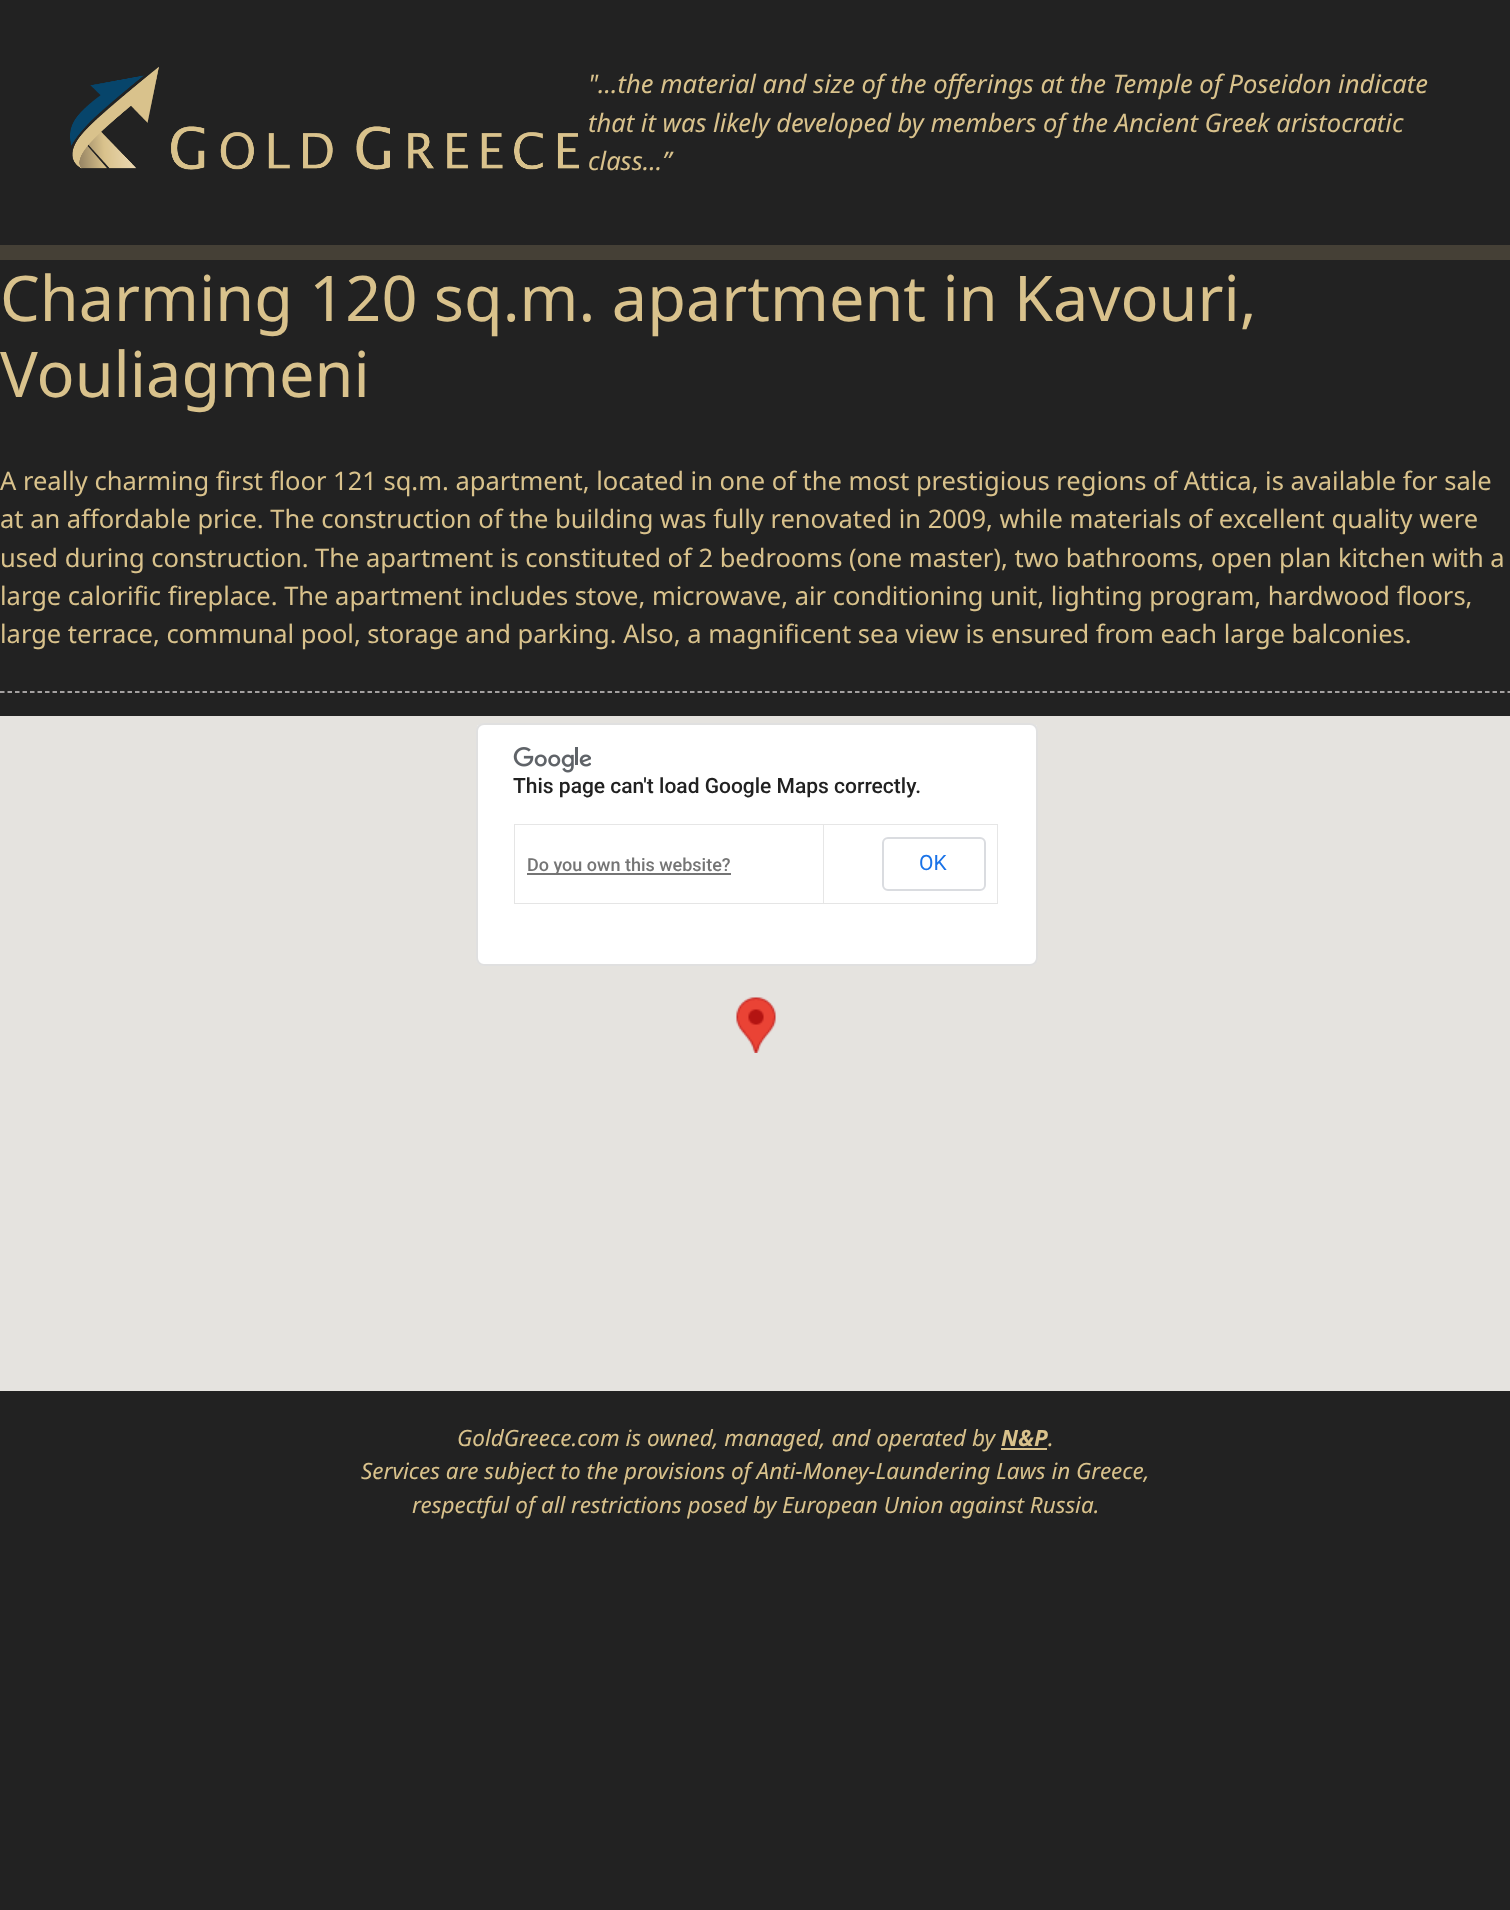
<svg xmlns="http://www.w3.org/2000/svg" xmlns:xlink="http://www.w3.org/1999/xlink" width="1510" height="1910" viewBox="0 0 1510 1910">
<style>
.cls-1{font:italic 25.5px Noto Sans;fill:#d9c28c}
.cls-2{font:63px Noto Sans;fill:#d9c28c}
.cls-3{font:25.5px Noto Sans;fill:#d9c28c}
.cls-4{font:500 21px Roboto;fill:#212121}
.cls-5{font:500 18px Roboto;fill:#757575}
.cls-6{font:21px Roboto;fill:#1a73e8}
.cls-7{font:italic 22.5px Noto Sans;fill:#d9c28c}
.cls-8{font:italic bold 22.5px Noto Sans;fill:#d9c28c}
</style>
<rect width="100%" height="100%" fill="#222222"/>
<rect fill="#454036" x="0" y="245" width="1510" height="15"/>
<image xlink:href="image0.png" x="70" y="66" width="509" height="104"/>
<path fill="none" stroke="#cfcbcb" stroke-width="1.5" stroke-dasharray="4.5 3" d="M0 692H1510.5"/>
<rect fill="#e5e3df" x="0" y="716" width="1510" height="675"/>
<image xlink:href="image1.png" x="736" y="997" width="40" height="56"/>
<rect fill="#ffffff" x="476" y="723" width="562" height="243" rx="8"/>
<rect fill="none" stroke="#000000" stroke-opacity="0.12" stroke-width="2" x="477" y="724" width="560" height="241" rx="7"/>
<image xlink:href="image2.png" x="513" y="747" width="78" height="26"/>
<path fill="#e6e6e6" d="M514 824H998V825H515Z"/>
<path fill="#000000" fill-opacity="0.1" d="M514 904V824L515 825V904Z"/>
<path fill="#e6e6e6" d="M824 825V904L823 903V825Z"/>
<path fill="#000000" fill-opacity="0.1" d="M824 904H515V903H823Z"/>
<rect fill="#757575" x="527" y="873" width="204" height="2"/>
<path fill="#e6e6e6" d="M998 825V904L997 903V825Z"/>
<path fill="#000000" fill-opacity="0.1" d="M998 904H824V903H997Z"/>
<rect fill="none" stroke="#dadce0" stroke-width="2" x="883" y="838" width="102" height="52" rx="5"/>
<rect fill="#d9c28c" x="1001" y="1448" width="46" height="2"/>
<text class="cls-1"><tspan x="588" y="93">"...the material and size of the offerings at the Temple of Poseidon indicate</tspan><tspan x="588" y="132">that it was likely developed by members of the Ancient Greek aristocratic</tspan><tspan x="588" y="170">class...”</tspan></text>
<text class="cls-2"><tspan x="0" y="321">Charming 120 sq.m. apartment in Kavouri,</tspan><tspan x="0" y="397">Vouliagmeni</tspan></text>
<text class="cls-3"><tspan x="0" y="490">A really charming first floor 121 sq.m. apartment, located in one of the most prestigious regions of Attica, is available for sale</tspan><tspan x="0" y="528">at an affordable price. The construction of the building was fully renovated in 2009, while materials of excellent quality were</tspan><tspan x="0" y="567">used during construction. The apartment is constituted of 2 bedrooms (one master), two bathrooms, open plan kitchen with a</tspan><tspan x="0" y="605">large calorific fireplace. The apartment includes stove, microwave, air conditioning unit, lighting program, hardwood floors,</tspan><tspan x="0" y="643">large terrace, communal pool, storage and parking. Also, a magnificent sea view is ensured from each large balconies.</tspan></text>
<text class="cls-4" x="513" y="793">This page can't load Google Maps correctly.</text>
<text class="cls-5" x="527" y="871">Do you own this website?</text>
<text class="cls-6" x="919" y="870">OK</text>
<text class="cls-7" x="457" y="1446">GoldGreece.com is owned, managed, and operated by</text>
<text class="cls-8" x="1001" y="1446">N&amp;P</text>
<text class="cls-7" x="1048" y="1446">.</text>
<text class="cls-7" x="361" y="1479">Services are subject to the provisions of Anti-Money-Laundering Laws in Greece,</text>
<text class="cls-7" x="412" y="1513">respectful of all restrictions posed by European Union against Russia.</text>
</svg>
